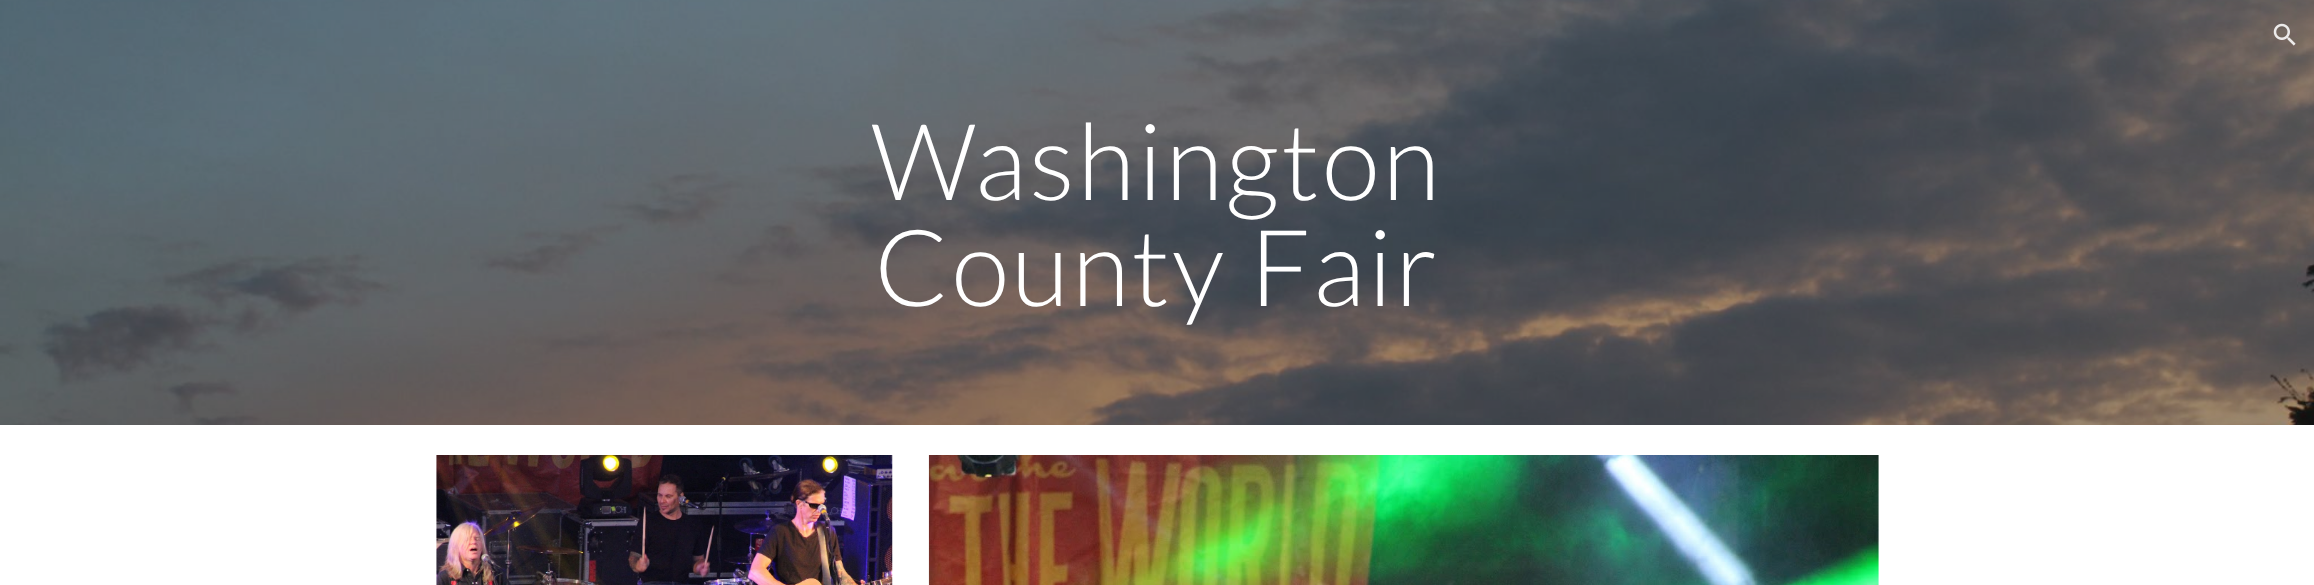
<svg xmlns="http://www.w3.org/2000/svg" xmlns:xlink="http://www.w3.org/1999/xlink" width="2314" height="585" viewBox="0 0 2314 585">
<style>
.cls-1{font:300 106.5px Lato;letter-spacing:2.5px;fill:#ffffff}
</style>
<rect width="100%" height="100%" fill="#ffffff"/>
<image xlink:href="image1.png" x="0" y="0" width="2314" height="425"/>
<image xlink:href="image0.png" x="2273" y="23" width="23" height="23"/>
<image xlink:href="image2.png" x="436" y="455" width="457" height="130"/>
<image xlink:href="image3.png" x="928" y="455" width="951" height="130"/>
<text class="cls-1" x="871" y="200">Washington</text>
<text class="cls-1" x="874" y="306">County Fair</text>
</svg>
